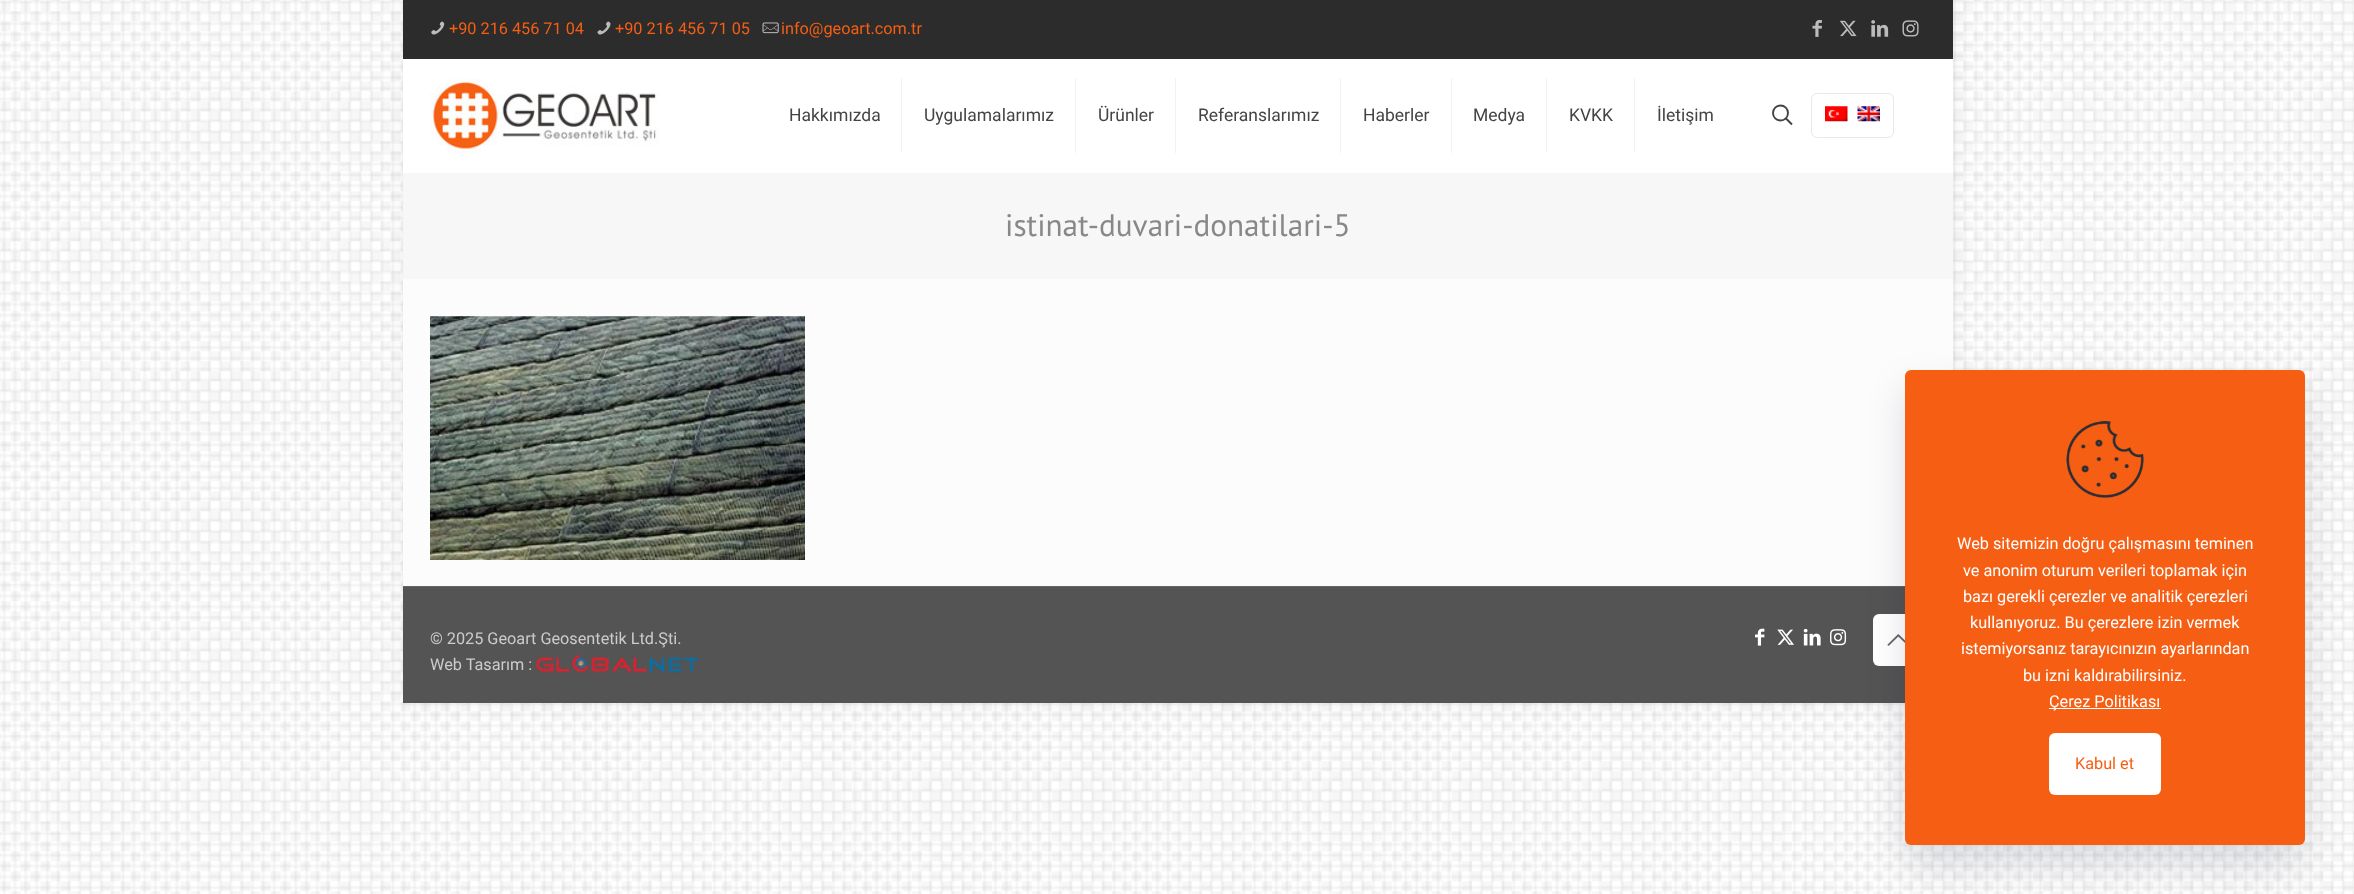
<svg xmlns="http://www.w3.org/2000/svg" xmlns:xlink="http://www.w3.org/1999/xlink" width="2354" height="894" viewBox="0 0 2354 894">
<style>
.cls-1{font:16.25px Roboto;fill:#f65e13}
.cls-2{font:17.5px Roboto;fill:#444444}
.cls-3{font:31.25px PT Sans;fill:#888888}
.cls-4{font:16.25px Roboto;fill:#cccccc}
.cls-5{font:16.25px Roboto;fill:#ffffff}
</style>
<rect width="100%" height="100%" fill="#ffffff"/>
<image xlink:href="image0.png" x="0" y="0" width="2354" height="894"/>
<rect fill="#000000" fill-opacity="0.06" filter="blur(9.5px)" x="403" y="0" width="1550" height="703"/>
<rect fill="#fcfcfc" x="403" y="279" width="1550" height="307"/>
<rect fill="#2c2c2c" x="403" y="0" width="1550" height="59"/>
<image xlink:href="image1.png" x="431" y="21" width="14" height="14"/>
<image xlink:href="image2.png" x="597" y="21" width="14" height="14"/>
<image xlink:href="image3.png" x="762" y="22" width="17" height="12"/>
<image xlink:href="image4.png" x="1812" y="20" width="10" height="17"/>
<image xlink:href="image5.png" x="1839" y="20" width="18" height="17"/>
<image xlink:href="image6.png" x="1871" y="20" width="18" height="17"/>
<image xlink:href="image7.png" x="1902" y="20" width="17" height="17"/>
<rect fill="#ffffff" x="403" y="59" width="1550" height="114"/>
<image xlink:href="image8.png" x="430" y="79" width="229" height="75"/>
<rect fill="#f2f2f2" x="901" y="78" width="1" height="75"/>
<rect fill="#f2f2f2" x="1075" y="78" width="1" height="75"/>
<rect fill="#f2f2f2" x="1175" y="78" width="1" height="75"/>
<rect fill="#f2f2f2" x="1340" y="78" width="1" height="75"/>
<rect fill="#f2f2f2" x="1451" y="78" width="1" height="75"/>
<rect fill="#f2f2f2" x="1546" y="78" width="1" height="75"/>
<rect fill="#f2f2f2" x="1634" y="78" width="1" height="75"/>
<circle fill="none" stroke="#444444" stroke-width="1.9" cx="1780.5" cy="113" r="7.5"/>
<path fill="none" stroke="#444444" stroke-width="1.9" d="M1785.5 118L1792 124.5"/>
<rect fill="none" stroke="#e8e8e8" x="1811.5" y="93.5" width="82" height="44" rx="5.5"/>
<image xlink:href="image9.png" x="1825" y="106" width="23" height="16"/>
<image xlink:href="image10.png" x="1857" y="106" width="23" height="16"/>
<rect fill="#f7f7f7" x="403" y="173" width="1550" height="106"/>
<image xlink:href="image11.png" x="430" y="316" width="375" height="244"/>
<rect fill="#545454" x="403" y="587" width="1502" height="116"/>
<rect fill="#656565" x="403" y="586" width="1502" height="1"/>
<image xlink:href="image12.png" x="536" y="655" width="163" height="18"/>
<image xlink:href="image13.png" x="1755" y="628" width="10" height="18"/>
<image xlink:href="image14.png" x="1777" y="629" width="17" height="16"/>
<image xlink:href="image15.png" x="1803" y="628" width="18" height="18"/>
<image xlink:href="image16.png" x="1830" y="629" width="17" height="17"/>
<rect fill="#ffffff" x="1873" y="614" width="52" height="52" rx="6"/>
<image xlink:href="image17.png" x="1887" y="634" width="18" height="12"/>
<rect fill="#010727" fill-opacity="0.13" filter="blur(19px)" x="1905" y="389" width="400" height="475" rx="6"/>
<rect fill="#f65e13" x="1905" y="370" width="400" height="475" rx="6"/>
<image xlink:href="image18.png" x="2066" y="421" width="78" height="77"/>
<rect fill="#ffffff" x="2049" y="708" width="112" height="1"/>
<rect fill="#ffffff" x="2049" y="733" width="112" height="62" rx="6"/>
<text class="cls-1" x="449" y="34">+90 216 456 71 04</text>
<text class="cls-1" x="615" y="34">+90 216 456 71 05</text>
<text class="cls-1" x="781" y="34">info@geoart.com.tr</text>
<text class="cls-2" x="789" y="121">Hakkımızda</text>
<text class="cls-2" x="924" y="121">Uygulamalarımız</text>
<text class="cls-2" x="1098" y="121">Ürünler</text>
<text class="cls-2" x="1198" y="121">Referanslarımız</text>
<text class="cls-2" x="1363" y="121">Haberler</text>
<text class="cls-2" x="1473" y="121">Medya</text>
<text class="cls-2" x="1569" y="121">KVKK</text>
<text class="cls-2" x="1657" y="121">İletişim</text>
<text class="cls-3" x="1005" y="236">istinat-duvari-donatilari-5</text>
<text class="cls-4"><tspan x="430" y="644">© 2025 Geoart Geosentetik Ltd.Şti.</tspan><tspan x="430" y="670">Web Tasarım :</tspan></text>
<text class="cls-5" x="1957" y="549">Web sitemizin doğru çalışmasını teminen</text>
<text class="cls-5"><tspan x="1963" y="576">ve anonim oturum verileri toplamak için</tspan><tspan x="1963" y="602">bazı gerekli çerezler ve analitik çerezleri</tspan></text>
<text class="cls-5" x="1970" y="628">kullanıyoruz. Bu çerezlere izin vermek</text>
<text class="cls-5" x="1961" y="654">istemiyorsanız tarayıcınızın ayarlarından</text>
<text class="cls-5" x="2023" y="681">bu izni kaldırabilirsiniz.</text>
<text class="cls-5" x="2049" y="707">Çerez Politikası</text>
<text class="cls-1" x="2075" y="769">Kabul et</text>
</svg>
